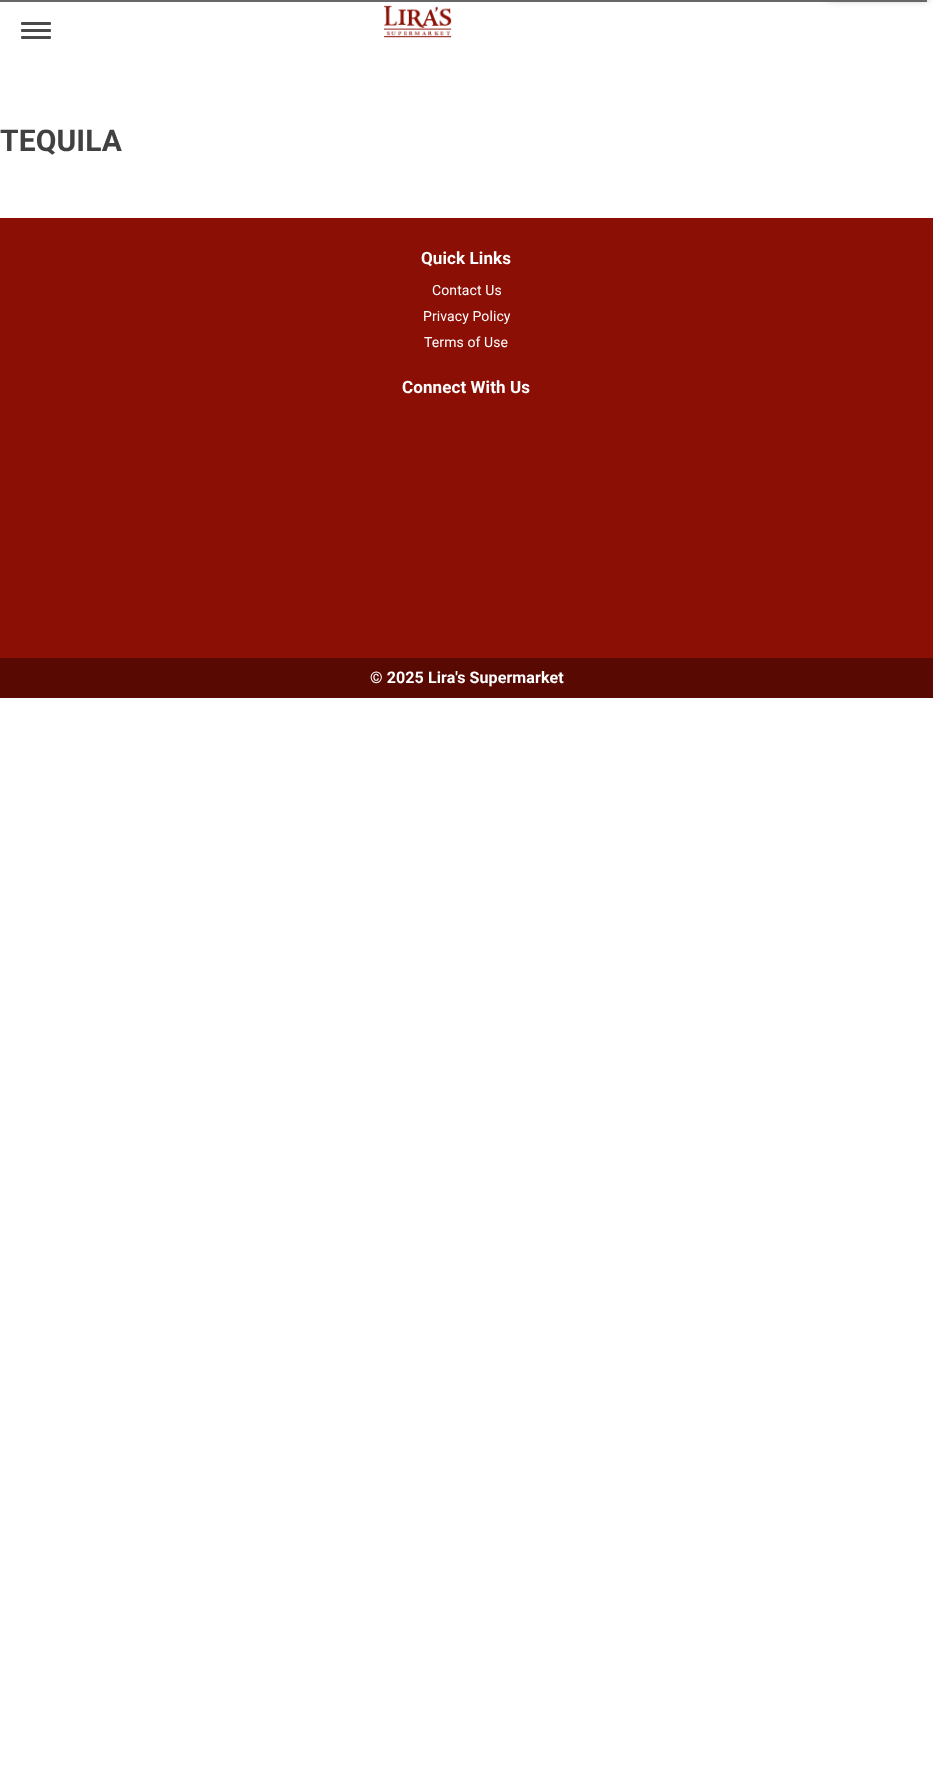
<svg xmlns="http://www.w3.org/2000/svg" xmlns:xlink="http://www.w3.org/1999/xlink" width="933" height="1784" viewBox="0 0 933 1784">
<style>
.cls-1{font:bold 30px Roboto;letter-spacing:0.1px;fill:#414141}
.cls-2{font:bold 17px Roboto;letter-spacing:0.1px;fill:#ffffff}
.cls-3{font:14px Roboto;letter-spacing:0.1px;fill:#ffffff}
.cls-4{font:bold 16px Roboto;letter-spacing:0.1px;fill:#ffffff}
</style>
<rect width="100%" height="100%" fill="#ffffff"/>
<rect fill="#686868" x="0" y="0" width="927" height="2"/>
<rect fill="#686868" filter="blur(2.5px)" x="828" y="-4" width="100" height="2"/>
<rect fill="#686868" filter="blur(5px)" x="828" y="-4" width="100" height="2"/>
<rect fill="#4a4a4a" x="21" y="22" width="30" height="3" rx="1"/>
<rect fill="#4a4a4a" x="21" y="29" width="30" height="3" rx="1"/>
<rect fill="#4a4a4a" x="21" y="36" width="30" height="3" rx="1"/>
<image xlink:href="image0.png" x="384" y="5" width="68" height="33"/>
<rect fill="#8b0f04" x="0" y="218" width="933" height="440"/>
<rect fill="#570902" x="0" y="658" width="933" height="40"/>
<text class="cls-1" x="0" y="151">TEQUILA</text>
<text class="cls-2" x="421" y="264">Quick Links</text>
<text class="cls-3" x="432" y="295">Contact Us</text>
<text class="cls-3" x="423" y="321">Privacy Policy</text>
<text class="cls-3" x="424" y="347">Terms of Use</text>
<text class="cls-2" x="402" y="393">Connect With Us</text>
<text class="cls-4" x="370" y="683">© 2025 Lira's Supermarket</text>
</svg>
